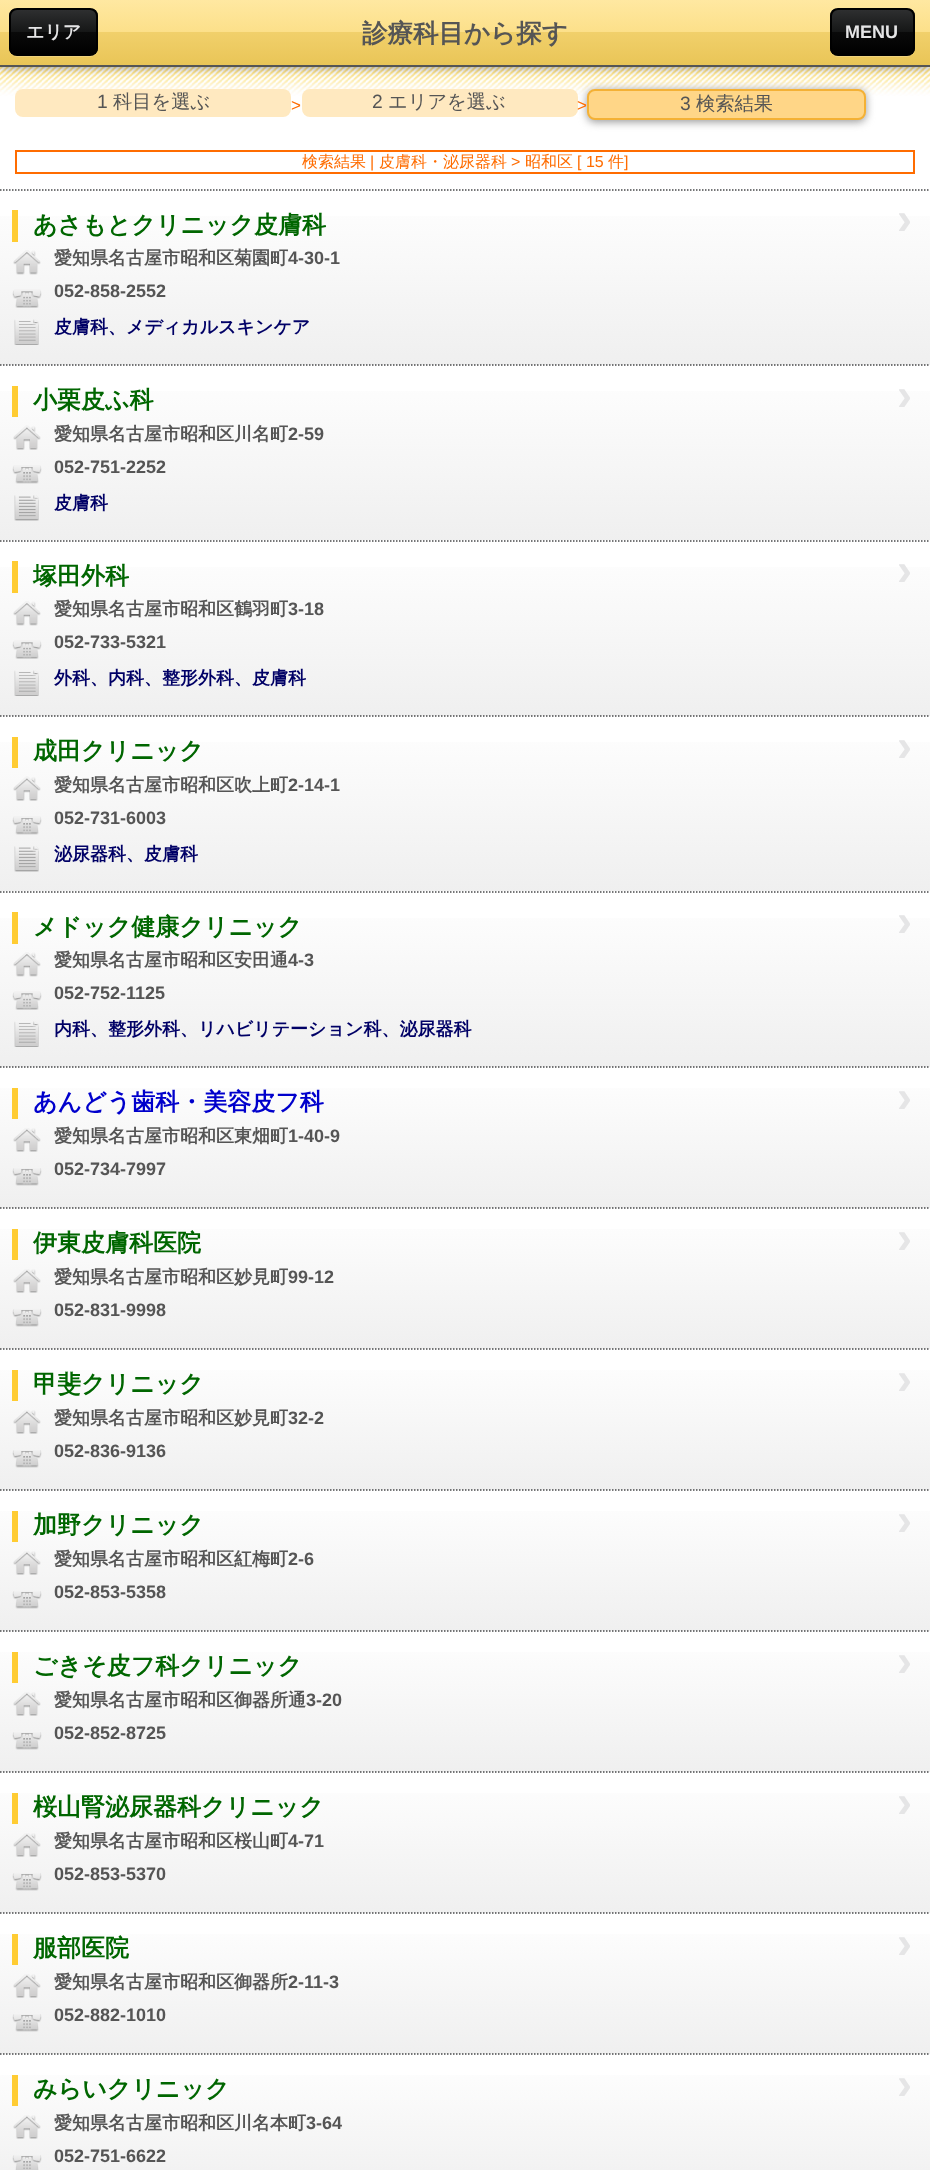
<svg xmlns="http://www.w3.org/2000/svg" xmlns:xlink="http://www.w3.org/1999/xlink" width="930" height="2170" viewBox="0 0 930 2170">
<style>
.cls-1{font:bold 18px WenQuanYi Zen Hei;fill:#e5e5e6}
.cls-2{font:bold 25.5px WenQuanYi Zen Hei;fill:#555555}
.cls-3{font:bold 18px Liberation Sans;fill:#e5e5e6}
.cls-4{font:19.25px Liberation Sans;fill:#555555}
.cls-5{font:500 19.25px WenQuanYi Zen Hei;fill:#555555}
.cls-6{font:17px Liberation Sans;fill:#ff6c00}
.cls-7{font:500 16px WenQuanYi Zen Hei;fill:#ff6c00}
.cls-8{font:16px Liberation Sans;fill:#ff6c00}
.cls-9{font:bold 24px WenQuanYi Zen Hei;fill:#006600}
.cls-10{font:bold 18px WenQuanYi Zen Hei;fill:#555555}
.cls-11{font:bold 18px Liberation Sans;fill:#555555}
.cls-12{font:bold 18px WenQuanYi Zen Hei;fill:#000066}
.cls-13{font:bold 45px Liberation Sans;fill:#e5e5e6}
.cls-14{font:bold 24px WenQuanYi Zen Hei;fill:#0000cc}
</style>
<defs>
<linearGradient id="g1" gradientUnits="userSpaceOnUse" x1="465" y1="0" x2="465" y2="65"><stop offset="0" stop-color="#ffe8a1"/><stop offset="0.49" stop-color="#fce08a"/><stop offset="0.5" stop-color="#f1d06b"/><stop offset="1" stop-color="#e9c557"/></linearGradient>
<clipPath id="clip1"><rect x="9" y="8" width="89" height="48" rx="8"/></clipPath>
<linearGradient id="g2" gradientUnits="userSpaceOnUse" x1="53" y1="9" x2="53" y2="54"><stop offset="0" stop-color="#2f3031"/><stop offset="0.5" stop-color="#161717"/><stop offset="0.51" stop-color="#0a0a0a"/><stop offset="1" stop-color="#000000"/></linearGradient>
<clipPath id="clip2"><rect x="830" y="8" width="85" height="48" rx="8"/></clipPath>
<linearGradient id="g3" gradientUnits="userSpaceOnUse" x1="872" y1="9" x2="872" y2="54"><stop offset="0" stop-color="#2f3031"/><stop offset="0.5" stop-color="#161717"/><stop offset="0.51" stop-color="#0a0a0a"/><stop offset="1" stop-color="#000000"/></linearGradient>
<linearGradient id="g4" gradientUnits="userSpaceOnUse" x1="465" y1="188" x2="465" y2="368"><stop offset="0" stop-color="#ffffff"/><stop offset="1" stop-color="#efefef"/></linearGradient>
<linearGradient id="g5" gradientUnits="userSpaceOnUse" x1="465" y1="363" x2="465" y2="543"><stop offset="0" stop-color="#ffffff"/><stop offset="1" stop-color="#efefef"/></linearGradient>
<linearGradient id="g6" gradientUnits="userSpaceOnUse" x1="465" y1="539" x2="465" y2="719"><stop offset="0" stop-color="#ffffff"/><stop offset="1" stop-color="#efefef"/></linearGradient>
<linearGradient id="g7" gradientUnits="userSpaceOnUse" x1="465" y1="714" x2="465" y2="894"><stop offset="0" stop-color="#ffffff"/><stop offset="1" stop-color="#efefef"/></linearGradient>
<linearGradient id="g8" gradientUnits="userSpaceOnUse" x1="465" y1="890" x2="465" y2="1070"><stop offset="0" stop-color="#ffffff"/><stop offset="1" stop-color="#efefef"/></linearGradient>
<linearGradient id="g9" gradientUnits="userSpaceOnUse" x1="465" y1="1065" x2="465" y2="1211"><stop offset="0" stop-color="#ffffff"/><stop offset="1" stop-color="#efefef"/></linearGradient>
<linearGradient id="g10" gradientUnits="userSpaceOnUse" x1="465" y1="1206" x2="465" y2="1352"><stop offset="0" stop-color="#ffffff"/><stop offset="1" stop-color="#efefef"/></linearGradient>
<linearGradient id="g11" gradientUnits="userSpaceOnUse" x1="465" y1="1347" x2="465" y2="1493"><stop offset="0" stop-color="#ffffff"/><stop offset="1" stop-color="#efefef"/></linearGradient>
<linearGradient id="g12" gradientUnits="userSpaceOnUse" x1="465" y1="1488" x2="465" y2="1634"><stop offset="0" stop-color="#ffffff"/><stop offset="1" stop-color="#efefef"/></linearGradient>
<linearGradient id="g13" gradientUnits="userSpaceOnUse" x1="465" y1="1629" x2="465" y2="1775"><stop offset="0" stop-color="#ffffff"/><stop offset="1" stop-color="#efefef"/></linearGradient>
<linearGradient id="g14" gradientUnits="userSpaceOnUse" x1="465" y1="1770" x2="465" y2="1916"><stop offset="0" stop-color="#ffffff"/><stop offset="1" stop-color="#efefef"/></linearGradient>
<linearGradient id="g15" gradientUnits="userSpaceOnUse" x1="465" y1="1911" x2="465" y2="2057"><stop offset="0" stop-color="#ffffff"/><stop offset="1" stop-color="#efefef"/></linearGradient>
<linearGradient id="g16" gradientUnits="userSpaceOnUse" x1="465" y1="2052" x2="465" y2="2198"><stop offset="0" stop-color="#ffffff"/><stop offset="1" stop-color="#efefef"/></linearGradient>
</defs>
<rect width="100%" height="100%" fill="#ffffff"/>
<image xlink:href="image0.png" x="0" y="67" width="930" height="29"/>
<rect fill="#000000" fill-opacity="0.4" filter="blur(4.5px)" x="0" y="2" width="930" height="66"/>
<rect fill="url(#g1)" x="0" y="0" width="930" height="65"/>
<rect fill="#555555" x="0" y="65" width="930" height="2"/>
<path fill="#ffffff" fill-opacity="0.2" d="M9 48V49C9 53 13 57 17 57H90C94 57 98 53 98 49V17L97 14L98 48C98 52 94 56 90 56H16C12 56 9 52 9 48Z"/>
<g clip-path="url(#clip1)">
<rect fill="url(#g2)" x="9" y="9" width="89" height="45"/>
</g>
<rect fill="none" stroke="#000000" stroke-width="2" x="10" y="9" width="87" height="46" rx="7"/>
<path fill="#efd37d" d="M830 52C832 55 835 57 838 57H907C911 57 915 53 915 49V48C915 52 912 56 908 56H837C834 56 832 54 830 52Z"/>
<g clip-path="url(#clip2)">
<rect fill="url(#g3)" x="830" y="9" width="85" height="45"/>
</g>
<rect fill="none" stroke="#000000" stroke-width="2" x="831" y="9" width="83" height="46" rx="7"/>
<rect fill="#ffe9c0" x="15" y="89" width="276" height="28" rx="8"/>
<rect fill="#ffe9c0" x="302" y="89" width="276" height="28" rx="8"/>
<rect fill="#999999" filter="blur(4px)" x="587" y="90" width="279" height="32" rx="8"/>
<rect fill="#ffd687" stroke="#f4b135" stroke-width="2" x="588" y="90" width="277" height="29" rx="7"/>
<rect fill="none" stroke="#ff6c00" stroke-width="2" x="16" y="151" width="898" height="22"/>
<path fill="none" stroke="#48494b" stroke-width="1.5" stroke-dasharray="1.5 1.5" d="M0 190H930"/>
<rect fill="url(#g4)" x="0" y="216" width="930" height="149"/>
<rect fill="#ffcc33" x="12" y="210" width="6" height="32"/>
<image xlink:href="image1.png" x="13" y="250" width="28" height="25"/>
<image xlink:href="image2.png" x="12" y="289" width="30" height="19"/>
<image xlink:href="image3.png" x="14" y="319" width="25" height="26"/>
<path fill="none" stroke="#48494b" stroke-width="1.5" stroke-dasharray="1.5 1.5" d="M0 365H930"/>
<rect fill="url(#g5)" x="0" y="391" width="930" height="149"/>
<rect fill="#ffcc33" x="12" y="386" width="6" height="31"/>
<image xlink:href="image4.png" x="13" y="425" width="28" height="25"/>
<image xlink:href="image5.png" x="12" y="465" width="30" height="19"/>
<image xlink:href="image6.png" x="14" y="495" width="25" height="26"/>
<path fill="none" stroke="#48494b" stroke-width="1.5" stroke-dasharray="1.5 1.5" d="M0 541H930"/>
<rect fill="url(#g6)" x="0" y="567" width="930" height="149"/>
<rect fill="#ffcc33" x="12" y="561" width="6" height="32"/>
<image xlink:href="image1.png" x="13" y="601" width="28" height="25"/>
<image xlink:href="image2.png" x="12" y="640" width="30" height="19"/>
<image xlink:href="image3.png" x="14" y="670" width="25" height="26"/>
<path fill="none" stroke="#48494b" stroke-width="1.5" stroke-dasharray="1.5 1.5" d="M0 716H930"/>
<rect fill="url(#g7)" x="0" y="742" width="930" height="149"/>
<rect fill="#ffcc33" x="12" y="737" width="6" height="31"/>
<image xlink:href="image4.png" x="13" y="776" width="28" height="25"/>
<image xlink:href="image5.png" x="12" y="816" width="30" height="19"/>
<image xlink:href="image6.png" x="14" y="846" width="25" height="26"/>
<path fill="none" stroke="#48494b" stroke-width="1.5" stroke-dasharray="1.5 1.5" d="M0 892H930"/>
<rect fill="url(#g8)" x="0" y="918" width="930" height="149"/>
<rect fill="#ffcc33" x="12" y="912" width="6" height="32"/>
<image xlink:href="image1.png" x="13" y="952" width="28" height="25"/>
<image xlink:href="image2.png" x="12" y="991" width="30" height="19"/>
<image xlink:href="image3.png" x="14" y="1021" width="25" height="26"/>
<path fill="none" stroke="#48494b" stroke-width="1.5" stroke-dasharray="1.5 1.5" d="M0 1067H930"/>
<rect fill="url(#g9)" x="0" y="1088" width="930" height="120"/>
<rect fill="#ffcc33" x="12" y="1088" width="6" height="31"/>
<image xlink:href="image7.png" x="13" y="1128" width="28" height="24"/>
<image xlink:href="image8.png" x="12" y="1168" width="30" height="18"/>
<path fill="none" stroke="#48494b" stroke-width="1.5" stroke-dasharray="1.5 1.5" d="M0 1208H930"/>
<rect fill="url(#g10)" x="0" y="1229" width="930" height="120"/>
<rect fill="#ffcc33" x="12" y="1229" width="6" height="31"/>
<image xlink:href="image7.png" x="13" y="1269" width="28" height="24"/>
<image xlink:href="image8.png" x="12" y="1309" width="30" height="18"/>
<path fill="none" stroke="#48494b" stroke-width="1.5" stroke-dasharray="1.5 1.5" d="M0 1349H930"/>
<rect fill="url(#g11)" x="0" y="1370" width="930" height="120"/>
<rect fill="#ffcc33" x="12" y="1370" width="6" height="31"/>
<image xlink:href="image7.png" x="13" y="1410" width="28" height="24"/>
<image xlink:href="image8.png" x="12" y="1450" width="30" height="18"/>
<path fill="none" stroke="#48494b" stroke-width="1.5" stroke-dasharray="1.5 1.5" d="M0 1490H930"/>
<rect fill="url(#g12)" x="0" y="1511" width="930" height="120"/>
<rect fill="#ffcc33" x="12" y="1511" width="6" height="31"/>
<image xlink:href="image7.png" x="13" y="1551" width="28" height="24"/>
<image xlink:href="image8.png" x="12" y="1591" width="30" height="18"/>
<path fill="none" stroke="#48494b" stroke-width="1.5" stroke-dasharray="1.5 1.5" d="M0 1631H930"/>
<rect fill="url(#g13)" x="0" y="1652" width="930" height="120"/>
<rect fill="#ffcc33" x="12" y="1652" width="6" height="31"/>
<image xlink:href="image7.png" x="13" y="1692" width="28" height="24"/>
<image xlink:href="image8.png" x="12" y="1732" width="30" height="18"/>
<path fill="none" stroke="#48494b" stroke-width="1.5" stroke-dasharray="1.5 1.5" d="M0 1772H930"/>
<rect fill="url(#g14)" x="0" y="1793" width="930" height="120"/>
<rect fill="#ffcc33" x="12" y="1793" width="6" height="31"/>
<image xlink:href="image7.png" x="13" y="1833" width="28" height="24"/>
<image xlink:href="image8.png" x="12" y="1873" width="30" height="18"/>
<path fill="none" stroke="#48494b" stroke-width="1.5" stroke-dasharray="1.5 1.5" d="M0 1913H930"/>
<rect fill="url(#g15)" x="0" y="1934" width="930" height="120"/>
<rect fill="#ffcc33" x="12" y="1934" width="6" height="31"/>
<image xlink:href="image7.png" x="13" y="1974" width="28" height="24"/>
<image xlink:href="image8.png" x="12" y="2014" width="30" height="18"/>
<path fill="none" stroke="#48494b" stroke-width="1.5" stroke-dasharray="1.5 1.5" d="M0 2054H930"/>
<rect fill="url(#g16)" x="0" y="2075" width="930" height="95"/>
<rect fill="#ffcc33" x="12" y="2075" width="6" height="31"/>
<image xlink:href="image7.png" x="13" y="2115" width="28" height="24"/>
<image xlink:href="image9.png" x="12" y="2155" width="30" height="15"/>
<text class="cls-1" x="26" y="38">エリア</text>
<text class="cls-2" x="362" y="42">診療科目から探す</text>
<text class="cls-3" x="845" y="38">MENU</text>
<text class="cls-4" x="97" y="108">1</text>
<text class="cls-5" x="113" y="108">科目を選ぶ</text>
<text class="cls-6" x="291" y="111">&gt;</text>
<text class="cls-4" x="372" y="108">2</text>
<text class="cls-5" x="388" y="108">エリアを選ぶ</text>
<text class="cls-6" x="577" y="111">&gt;</text>
<text class="cls-4" x="680" y="110">3</text>
<text class="cls-5" x="696" y="110">検索結果</text>
<text class="cls-7" x="302" y="167">検索結果</text>
<text class="cls-8" x="370" y="167">|</text>
<text class="cls-7" x="379" y="167">皮膚科・泌尿器科</text>
<text class="cls-8" x="511" y="167">&gt;</text>
<text class="cls-7" x="525" y="167">昭和区</text>
<text class="cls-8" x="577" y="167">[ 15</text>
<text class="cls-7" x="608" y="167">件</text>
<text class="cls-8" x="624" y="167">]</text>
<text class="cls-9" x="33" y="233">あさもとクリニック皮膚科</text>
<text class="cls-10" x="54" y="264">愛知県名古屋市昭和区菊園町</text>
<text class="cls-11" x="288" y="264">4-30-1</text>
<text class="cls-11" x="54" y="297">052-858-2552</text>
<text class="cls-12" x="54" y="333">皮膚科、メディカルスキンケア</text>
<text class="cls-13" x="897" y="234">›</text>
<text class="cls-9" x="33" y="408">小栗皮ふ科</text>
<text class="cls-10" x="54" y="440">愛知県名古屋市昭和区川名町</text>
<text class="cls-11" x="288" y="440">2-59</text>
<text class="cls-11" x="54" y="473">052-751-2252</text>
<text class="cls-12" x="54" y="509">皮膚科</text>
<text class="cls-13" x="897" y="410">›</text>
<text class="cls-9" x="33" y="584">塚田外科</text>
<text class="cls-10" x="54" y="615">愛知県名古屋市昭和区鶴羽町</text>
<text class="cls-11" x="288" y="615">3-18</text>
<text class="cls-11" x="54" y="648">052-733-5321</text>
<text class="cls-12" x="54" y="684">外科、内科、整形外科、皮膚科</text>
<text class="cls-13" x="897" y="585">›</text>
<text class="cls-9" x="33" y="759">成田クリニック</text>
<text class="cls-10" x="54" y="791">愛知県名古屋市昭和区吹上町</text>
<text class="cls-11" x="288" y="791">2-14-1</text>
<text class="cls-11" x="54" y="824">052-731-6003</text>
<text class="cls-12" x="54" y="860">泌尿器科、皮膚科</text>
<text class="cls-13" x="897" y="761">›</text>
<text class="cls-9" x="33" y="935">メドック健康クリニック</text>
<text class="cls-10" x="54" y="966">愛知県名古屋市昭和区安田通</text>
<text class="cls-11" x="288" y="966">4-3</text>
<text class="cls-11" x="54" y="999">052-752-1125</text>
<text class="cls-12" x="54" y="1035">内科、整形外科、リハビリテーション科、泌尿器科</text>
<text class="cls-13" x="897" y="936">›</text>
<text class="cls-14" x="33" y="1110">あんどう歯科・美容皮フ科</text>
<text class="cls-10" x="54" y="1142">愛知県名古屋市昭和区東畑町</text>
<text class="cls-11" x="288" y="1142">1-40-9</text>
<text class="cls-11" x="54" y="1175">052-734-7997</text>
<text class="cls-13" x="897" y="1112">›</text>
<text class="cls-9" x="33" y="1251">伊東皮膚科医院</text>
<text class="cls-10" x="54" y="1283">愛知県名古屋市昭和区妙見町</text>
<text class="cls-11" x="288" y="1283">99-12</text>
<text class="cls-11" x="54" y="1316">052-831-9998</text>
<text class="cls-13" x="897" y="1253">›</text>
<text class="cls-9" x="33" y="1392">甲斐クリニック</text>
<text class="cls-10" x="54" y="1424">愛知県名古屋市昭和区妙見町</text>
<text class="cls-11" x="288" y="1424">32-2</text>
<text class="cls-11" x="54" y="1457">052-836-9136</text>
<text class="cls-13" x="897" y="1394">›</text>
<text class="cls-9" x="33" y="1533">加野クリニック</text>
<text class="cls-10" x="54" y="1565">愛知県名古屋市昭和区紅梅町</text>
<text class="cls-11" x="288" y="1565">2-6</text>
<text class="cls-11" x="54" y="1598">052-853-5358</text>
<text class="cls-13" x="897" y="1535">›</text>
<text class="cls-9" x="33" y="1674">ごきそ皮フ科クリニック</text>
<text class="cls-10" x="54" y="1706">愛知県名古屋市昭和区御器所通</text>
<text class="cls-11" x="306" y="1706">3-20</text>
<text class="cls-11" x="54" y="1739">052-852-8725</text>
<text class="cls-13" x="897" y="1676">›</text>
<text class="cls-9" x="33" y="1815">桜山腎泌尿器科クリニック</text>
<text class="cls-10" x="54" y="1847">愛知県名古屋市昭和区桜山町</text>
<text class="cls-11" x="288" y="1847">4-71</text>
<text class="cls-11" x="54" y="1880">052-853-5370</text>
<text class="cls-13" x="897" y="1817">›</text>
<text class="cls-9" x="33" y="1956">服部医院</text>
<text class="cls-10" x="54" y="1988">愛知県名古屋市昭和区御器所</text>
<text class="cls-11" x="288" y="1988">2-11-3</text>
<text class="cls-11" x="54" y="2021">052-882-1010</text>
<text class="cls-13" x="897" y="1958">›</text>
<text class="cls-9" x="33" y="2097">みらいクリニック</text>
<text class="cls-10" x="54" y="2129">愛知県名古屋市昭和区川名本町</text>
<text class="cls-11" x="306" y="2129">3-64</text>
<text class="cls-11" x="54" y="2162">052-751-6622</text>
<text class="cls-13" x="897" y="2099">›</text>
</svg>
